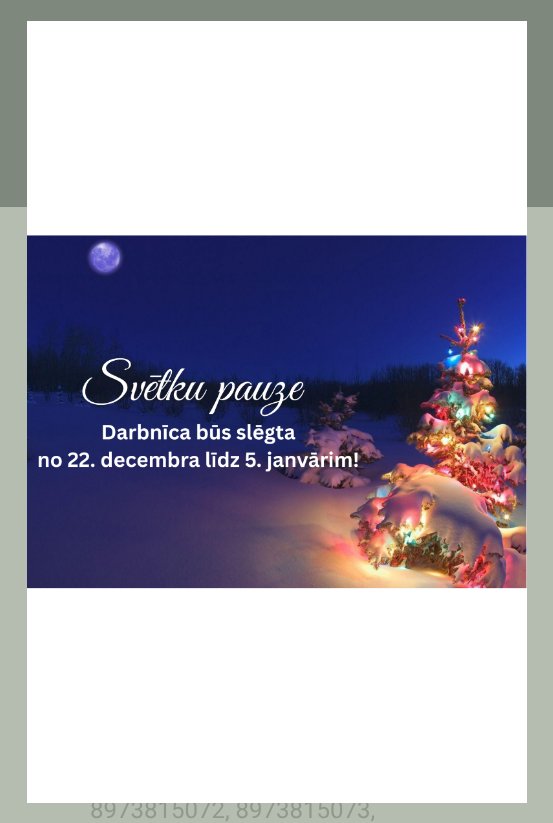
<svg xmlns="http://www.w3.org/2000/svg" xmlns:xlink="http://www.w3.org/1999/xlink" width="553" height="823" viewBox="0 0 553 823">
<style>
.cls-1{font:24px Roboto;fill:#91998d}
</style>
<rect width="100%" height="100%" fill="#7f887d"/>
<rect fill="#b5bdb1" x="0" y="207" width="553" height="616"/>
<text class="cls-1" x="90" y="818">8973815072, 8973815073,</text>
<rect fill="#ffffff" x="27" y="21" width="500" height="782"/>
<image xlink:href="image0.png" x="27" y="235" width="500" height="354"/>
</svg>
